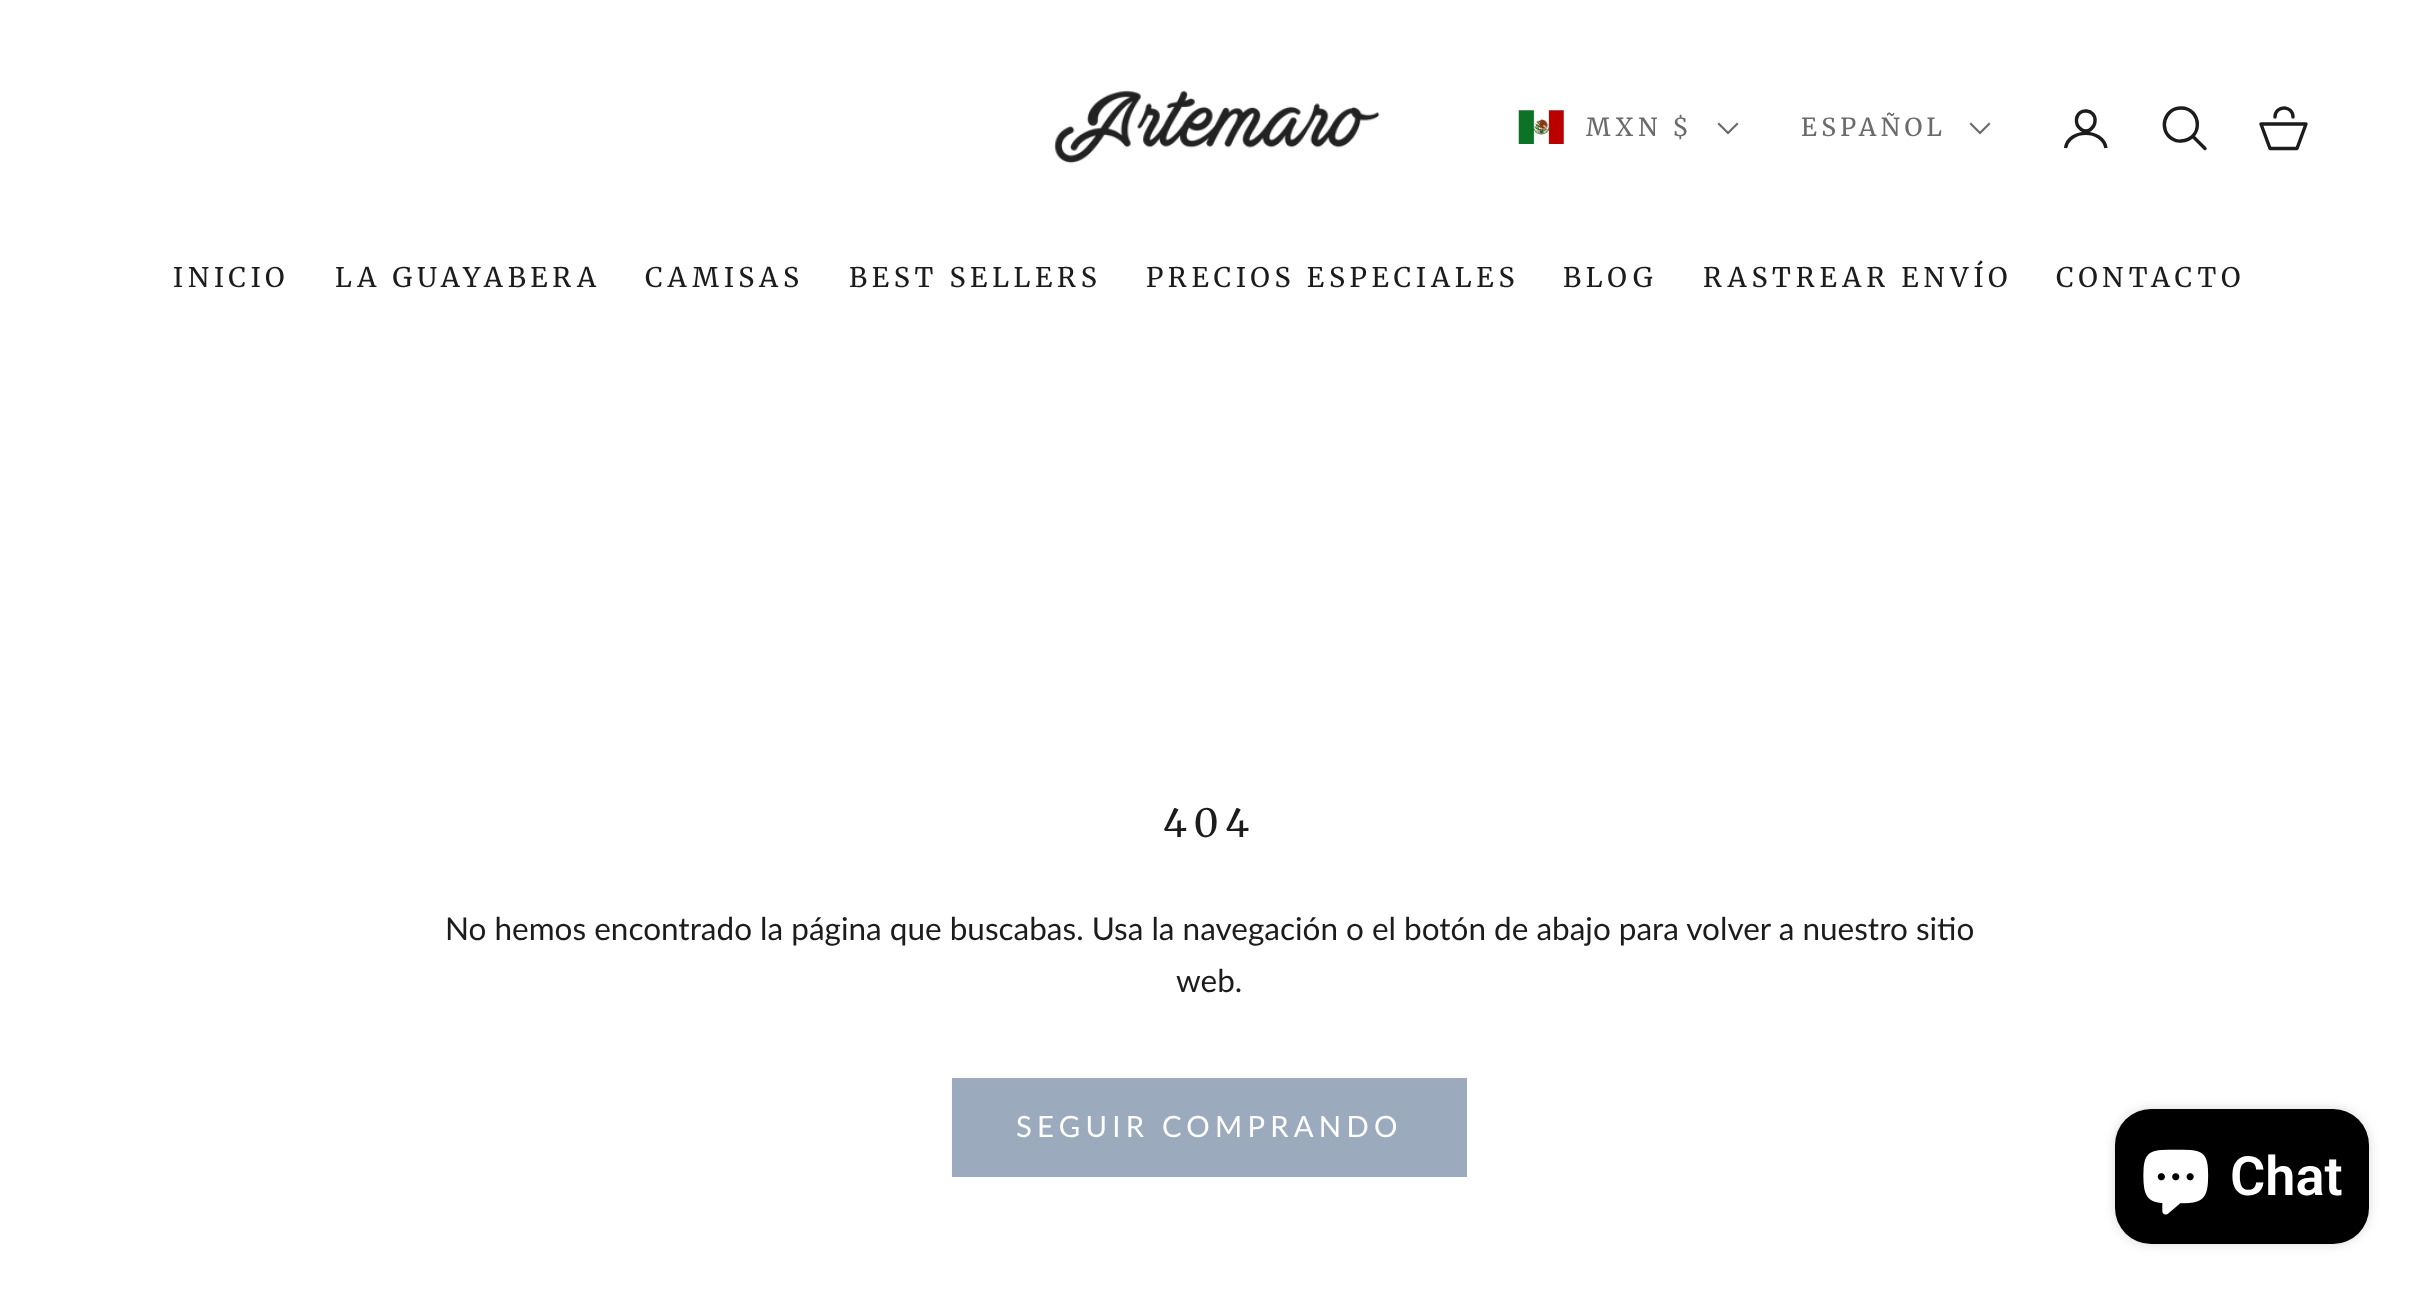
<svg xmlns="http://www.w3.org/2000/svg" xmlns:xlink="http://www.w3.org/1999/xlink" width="2418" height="1291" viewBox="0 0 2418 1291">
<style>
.cls-1{font:24.75px Merriweather;letter-spacing:4.5px;fill:#6b6b6b}
.cls-2{font:27px Merriweather;letter-spacing:4.9px;fill:#1c1c1c}
.cls-3{font:39px Merriweather;letter-spacing:7px;fill:#1c1c1c}
.cls-4{font:31.5px Lato;fill:#1c1c1c}
.cls-5{font:29.25px Lato;letter-spacing:5.25px;fill:#ffffff}
.cls-6{font:600 54px Roboto;fill:#ffffff}
</style>
<rect width="100%" height="100%" fill="#ffffff"/>
<image xlink:href="image0.png" x="1054" y="90" width="326" height="74"/>
<image xlink:href="image1.png" x="1518" y="110" width="46" height="34"/>
<path fill="none" stroke="#6b6b6b" stroke-width="2.2" stroke-linecap="square" d="M1719 124L1728 133L1737 124"/>
<path fill="none" stroke="#6b6b6b" stroke-width="2.2" stroke-linecap="square" d="M1971 124L1980 133L1989 124"/>
<path fill="none" stroke="#1c1c1c" stroke-width="3.4" stroke-linecap="round" stroke-linejoin="round" d="M2095 121C2095 123.5 2094 126 2092 128C2085 135.5 2075.5 127.5 2076.5 119C2078 107 2096 109 2095 121Z"/>
<path fill="none" stroke="#1c1c1c" stroke-width="3.4" d="M2065.5 148C2069 128.5 2102.5 128.5 2106 148"/>
<path fill="none" stroke="#1c1c1c" stroke-width="3.4" d="M2181 108C2164 108 2158 130.5 2172.5 139C2175 140.5 2178 141.5 2181 141C2203.5 140 2202 108 2181 108Z"/>
<path fill="none" stroke="#1c1c1c" stroke-width="3.4" stroke-linecap="round" d="M2193.5 137L2205 148.5"/>
<path fill="none" stroke="#1c1c1c" stroke-width="3.4" stroke-linecap="round" stroke-linejoin="round" d="M2261 124H2306L2297 148.5H2270ZM2293 117C2293 105 2275 105 2275 117"/>
<rect fill="#9baabc" stroke="#9baabc" stroke-width="2" x="953" y="1079" width="513" height="97"/>
<rect fill="#000000" fill-opacity="0.15" filter="blur(5.5px)" x="2115" y="1109" width="254" height="135" rx="36"/>
<rect fill="#000000" x="2115" y="1109" width="254" height="135" rx="36"/>
<image xlink:href="image2.png" x="2143" y="1149" width="66" height="66"/>
<text class="cls-1" x="1586" y="136">MXN $</text>
<text class="cls-1" x="1801" y="136">ESPAÑOL</text>
<text class="cls-2" x="173" y="287">INICIO</text>
<text class="cls-2" x="335" y="287">LA GUAYABERA</text>
<text class="cls-2" x="645" y="287">CAMISAS</text>
<text class="cls-2" x="849" y="287">BEST SELLERS</text>
<text class="cls-2" x="1146" y="287">PRECIOS ESPECIALES</text>
<text class="cls-2" x="1563" y="287">BLOG</text>
<text class="cls-2" x="1703" y="287">RASTREAR ENVÍO</text>
<text class="cls-2" x="2056" y="287">CONTACTO</text>
<text class="cls-3" x="1163" y="837">404</text>
<text class="cls-4" x="445" y="940">No hemos encontrado la página que buscabas. Usa la navegación o el botón de abajo para volver a nuestro sitio</text>
<text class="cls-4" x="1176" y="992">web.</text>
<text class="cls-5" x="1016" y="1137">SEGUIR COMPRANDO</text>
<text class="cls-6" x="2230" y="1195">Chat</text>
</svg>
